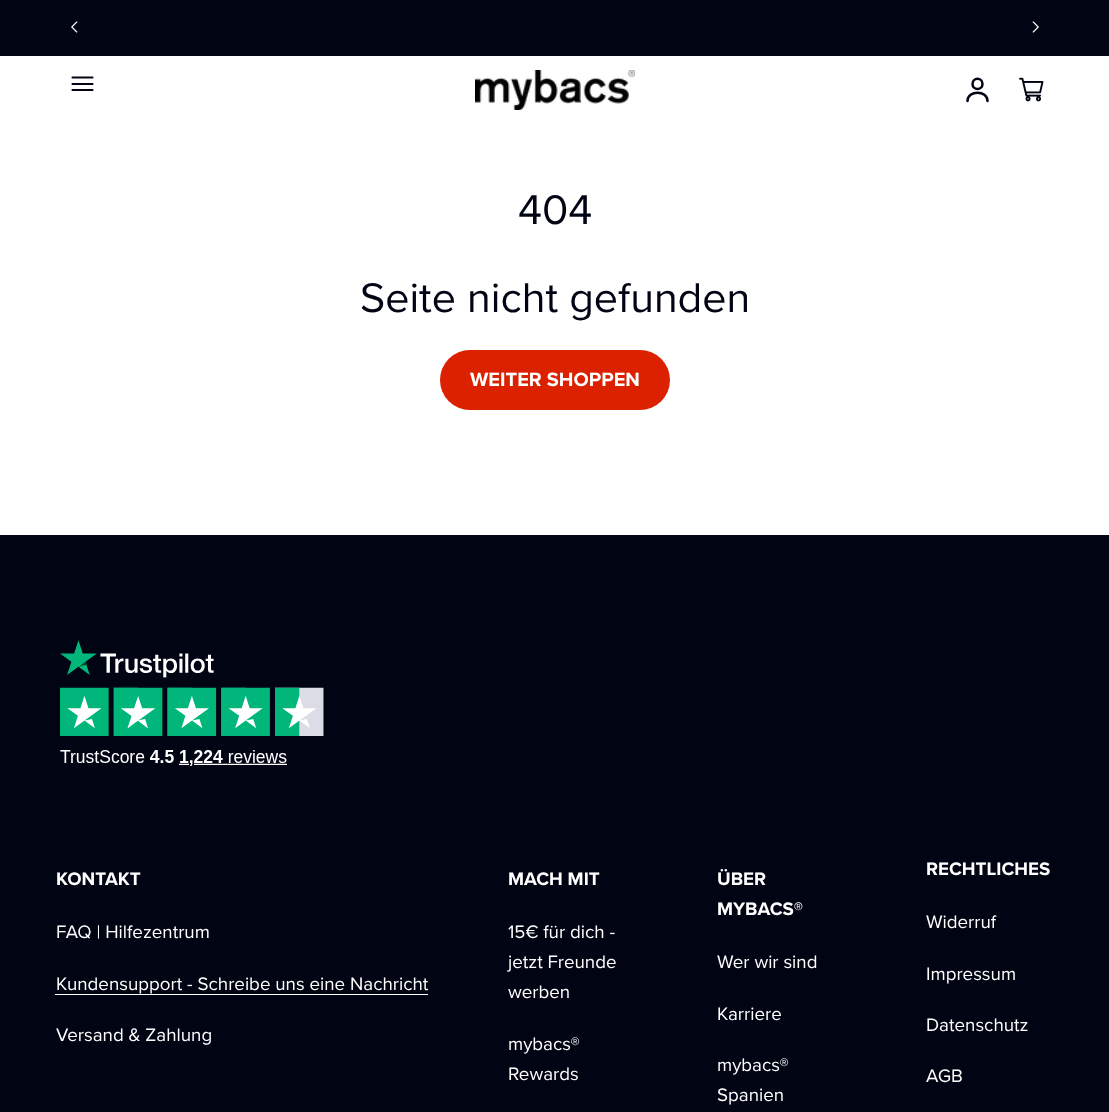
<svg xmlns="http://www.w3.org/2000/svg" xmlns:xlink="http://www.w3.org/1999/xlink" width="1109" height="1112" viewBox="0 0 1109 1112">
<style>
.cls-1{font:43px Proxima Nova;fill:#000413}
.cls-2{font:bold 20px Proxima Nova;fill:#ffffff}
.cls-3{font:bold 18.75px Proxima Nova;fill:#ffffff}
.cls-4{font:18.75px Proxima Nova;fill:#ffffff}
</style>
<rect width="100%" height="100%" fill="#ffffff"/>
<rect fill="#000413" x="0" y="0" width="1109" height="56"/>
<image xlink:href="image0.png" x="71" y="21" width="7" height="12"/>
<image xlink:href="image1.png" x="1032" y="21" width="7" height="12"/>
<path fill="none" stroke="#000413" stroke-width="2.1" stroke-linecap="round" d="M72.5 77.5H92.5M72.5 84H92.5M72.5 90H92.5"/>
<image xlink:href="image2.png" x="475" y="70" width="160" height="40"/>
<path fill="none" stroke="#000413" stroke-width="2.5" stroke-linecap="round" d="M967.5 101C967.5 90 987.5 90 987.5 101M982.5 84C982.5 90.5 972.5 90.5 972.5 84C972.5 77 982.5 77 982.5 84Z"/>
<image xlink:href="image3.png" x="1019" y="77" width="25" height="25"/>
<rect fill="#db2100" x="440" y="350" width="230" height="60" rx="30"/>
<rect fill="#000413" x="0" y="535" width="1109" height="577"/>
<image xlink:href="image4.png" x="60" y="640" width="264" height="126"/>
<rect fill="#ffffff" x="55" y="994" width="373" height="1"/>
<text class="cls-1" x="518" y="224">404</text>
<text class="cls-1" x="360" y="312">Seite nicht gefunden</text>
<text class="cls-2" x="470" y="386">WEITER SHOPPEN</text>
<text class="cls-3" x="56" y="885">KONTAKT</text>
<text class="cls-4" x="56" y="938">FAQ | Hilfezentrum</text>
<text class="cls-4" x="56" y="990">Kundensupport - Schreibe uns eine Nachricht</text>
<text class="cls-4" x="56" y="1041">Versand &amp; Zahlung</text>
<text class="cls-3" x="508" y="885">MACH MIT</text>
<text class="cls-4"><tspan x="508" y="938">15€ für dich -</tspan><tspan x="508" y="968">jetzt Freunde</tspan><tspan x="508" y="998">werben</tspan></text>
<text class="cls-4"><tspan x="508" y="1050">mybacs®</tspan><tspan x="508" y="1080">Rewards</tspan></text>
<text class="cls-3"><tspan x="717" y="885">ÜBER</tspan><tspan x="717" y="915">MYBACS®</tspan></text>
<text class="cls-4" x="717" y="968">Wer wir sind</text>
<text class="cls-4" x="717" y="1020">Karriere</text>
<text class="cls-4"><tspan x="717" y="1071">mybacs®</tspan><tspan x="717" y="1101">Spanien</tspan></text>
<text class="cls-3" x="926" y="875">RECHTLICHES</text>
<text class="cls-4" x="926" y="928">Widerruf</text>
<text class="cls-4" x="926" y="980">Impressum</text>
<text class="cls-4" x="926" y="1031">Datenschutz</text>
<text class="cls-4" x="926" y="1082">AGB</text>
</svg>
